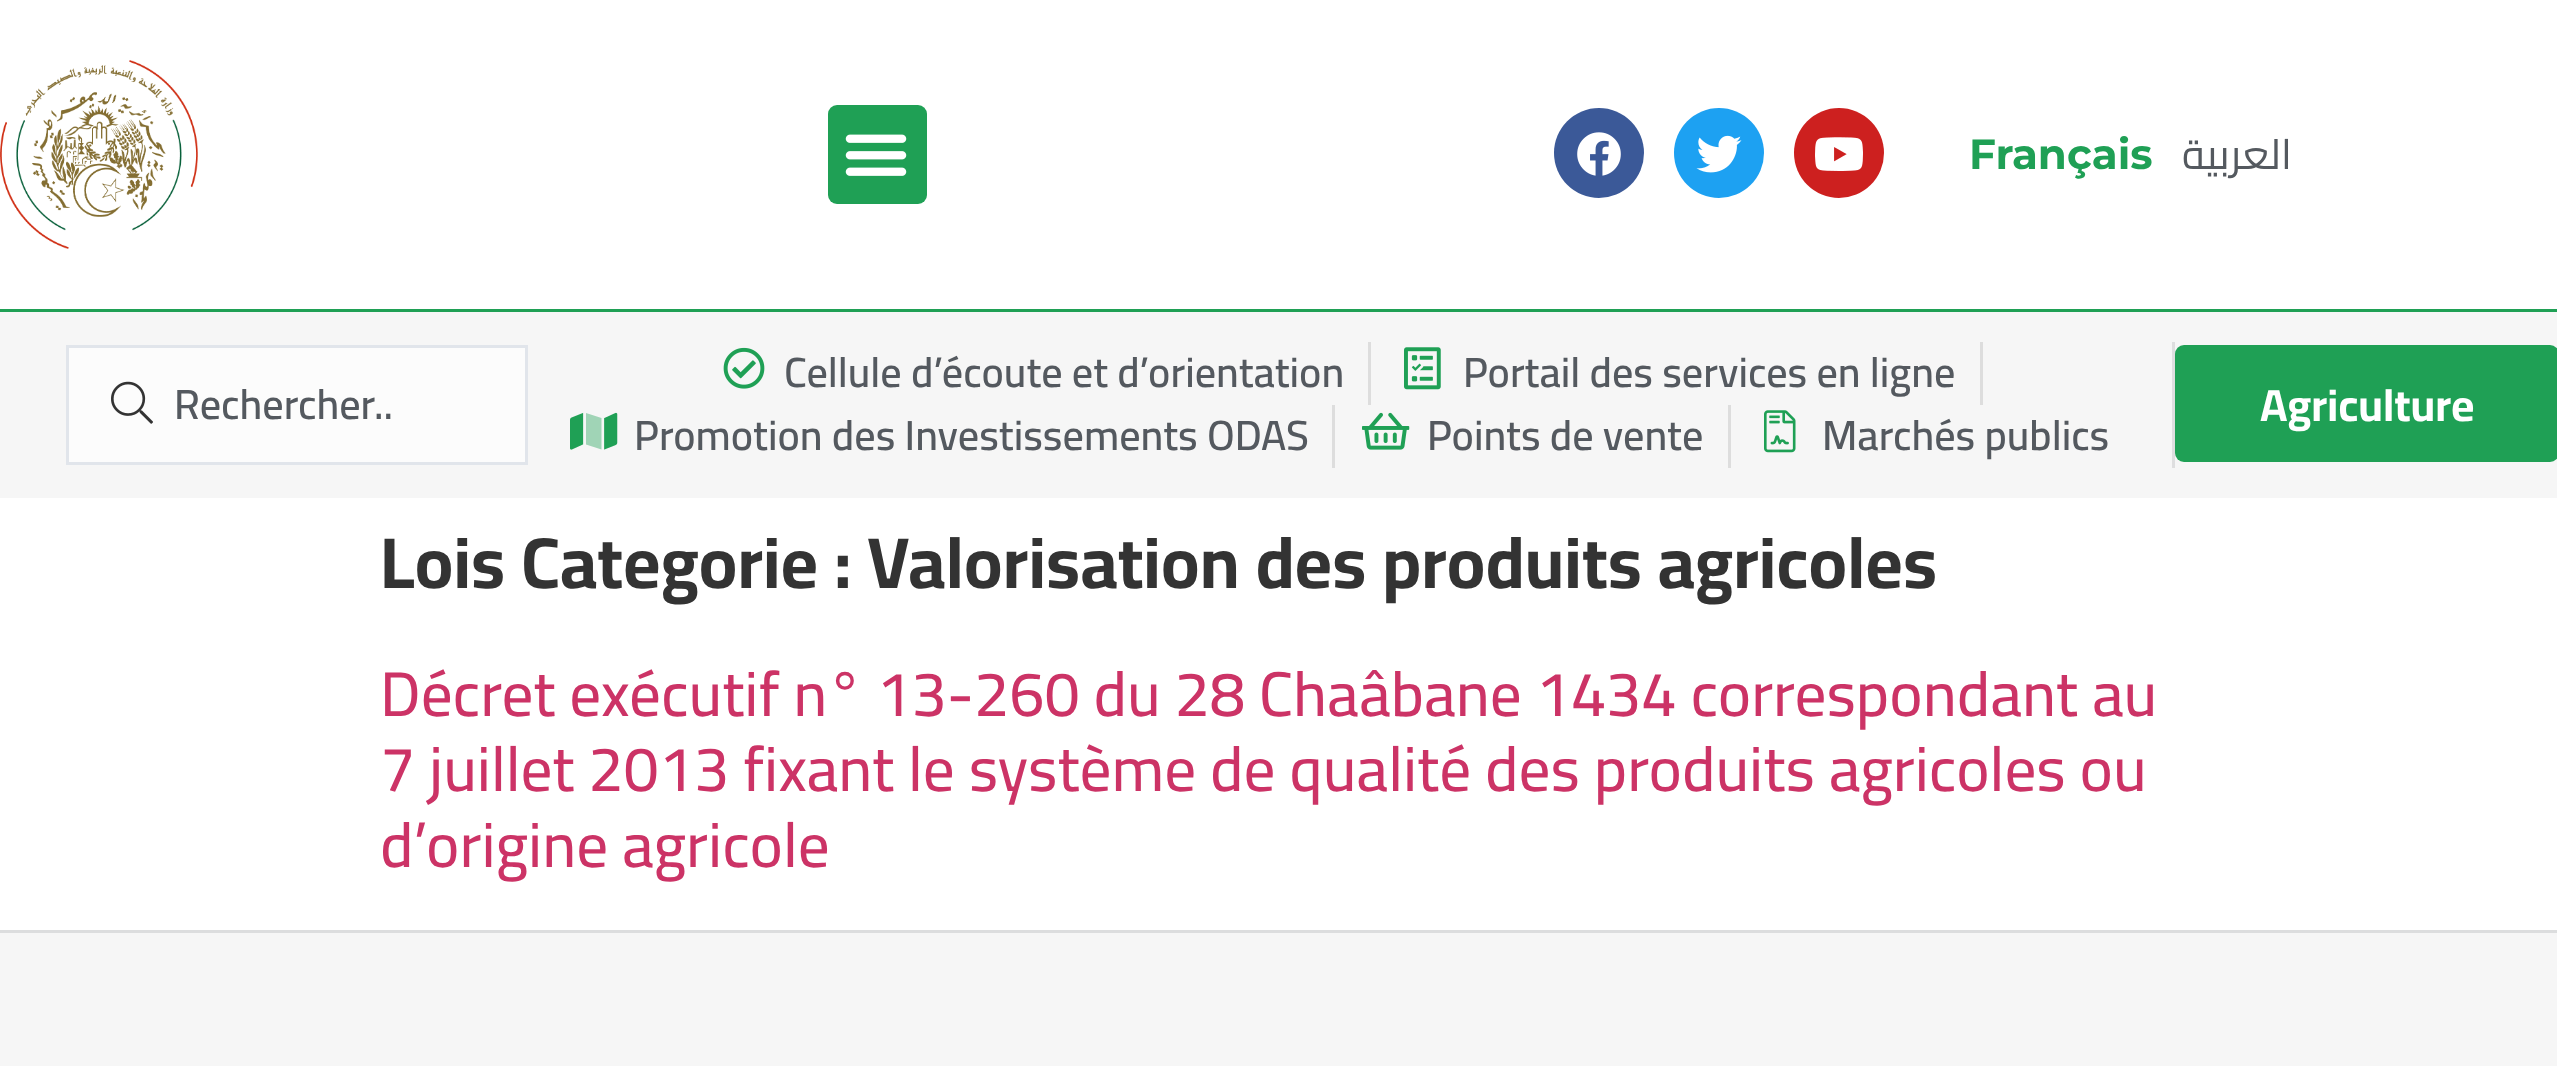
<svg xmlns="http://www.w3.org/2000/svg" xmlns:xlink="http://www.w3.org/1999/xlink" width="2557" height="1066" viewBox="0 0 2557 1066">
<style>
.cls-1{font:bold 42px Montserrat;fill:#1fa055}
.cls-2{font:42px Cairo;direction:rtl;fill:#54595f}
.cls-3{font:600 42px Cairo;fill:#54595f}
.cls-4{font:bold 45px Cairo;fill:#ffffff}
.cls-5{font:bold 72px Cairo;fill:#333333}
.cls-6{font:500 63px Cairo;fill:#cc3366}
</style>
<rect width="100%" height="100%" fill="#ffffff"/>
<rect fill="#1fa055" x="0" y="309" width="2557" height="3"/>
<image xlink:href="image0.png" x="0" y="60" width="198" height="189"/>
<rect fill="#1fa055" x="828" y="105" width="99" height="99" rx="9"/>
<image xlink:href="image1.png" x="845" y="134" width="62" height="42"/>
<circle fill="#3b5998" cx="1599" cy="153" r="45"/>
<image xlink:href="image2.png" x="1577" y="132" width="44" height="44"/>
<circle fill="#1da1f2" cx="1719" cy="153" r="45"/>
<image xlink:href="image3.png" x="1696" y="135" width="46" height="38"/>
<circle fill="#cd201f" cx="1839" cy="153" r="45"/>
<image xlink:href="image4.png" x="1815" y="137" width="48" height="34"/>
<rect fill="#f6f6f6" x="0" y="312" width="2557" height="186"/>
<rect fill="#fcfcfc" stroke="#e1e5eb" stroke-width="3" x="67.5" y="346.5" width="459" height="117"/>
<image xlink:href="image5.png" x="111" y="381" width="42" height="43"/>
<rect fill="#dededf" x="2172" y="342" width="3" height="126"/>
<image xlink:href="image6.png" x="723" y="347" width="42" height="42"/>
<rect fill="#dddddd" x="1368" y="342" width="3" height="63"/>
<image xlink:href="image7.png" x="1404" y="347" width="37" height="43"/>
<rect fill="#dddddd" x="1980" y="342" width="3" height="63"/>
<image xlink:href="image8.png" x="570" y="412" width="48" height="38"/>
<path fill="#a0d4b6" d="M586 413L601.5 418V449.5L586 444.5Z"/>
<rect fill="#dddddd" x="1332" y="405" width="3" height="63"/>
<image xlink:href="image9.png" x="1362" y="412" width="48" height="38"/>
<rect fill="#dddddd" x="1728" y="405" width="3" height="63"/>
<image xlink:href="image10.png" x="1764" y="410" width="32" height="43"/>
<rect fill="#1fa055" x="2175" y="345" width="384" height="117" rx="9"/>
<rect fill="#f6f6f6" x="0" y="933" width="2557" height="133"/>
<rect fill="#dcddde" x="0" y="930" width="2557" height="3"/>
<text class="cls-1" x="1969" y="169">Français</text>
<text class="cls-2" x="2292" y="169">العربية</text>
<text class="cls-3" x="174" y="419">Rechercher..</text>
<text class="cls-3" x="784" y="387">Cellule d’écoute et d’orientation</text>
<text class="cls-3" x="1463" y="387">Portail des services en ligne</text>
<text class="cls-3" x="634" y="450">Promotion des Investissements ODAS</text>
<text class="cls-3" x="1427" y="450">Points de vente</text>
<text class="cls-3" x="1822" y="450">Marchés publics</text>
<text class="cls-4" x="2260" y="421">Agriculture</text>
<text class="cls-5" x="380" y="588">Lois Categorie : Valorisation des produits agricoles</text>
<text class="cls-6"><tspan x="380" y="716">Décret exécutif n° 13-260 du 28 Chaâbane 1434 correspondant au</tspan><tspan x="380" y="791">7 juillet 2013 fixant le système de qualité des produits agricoles ou</tspan><tspan x="380" y="867">d’origine agricole</tspan></text>
</svg>
